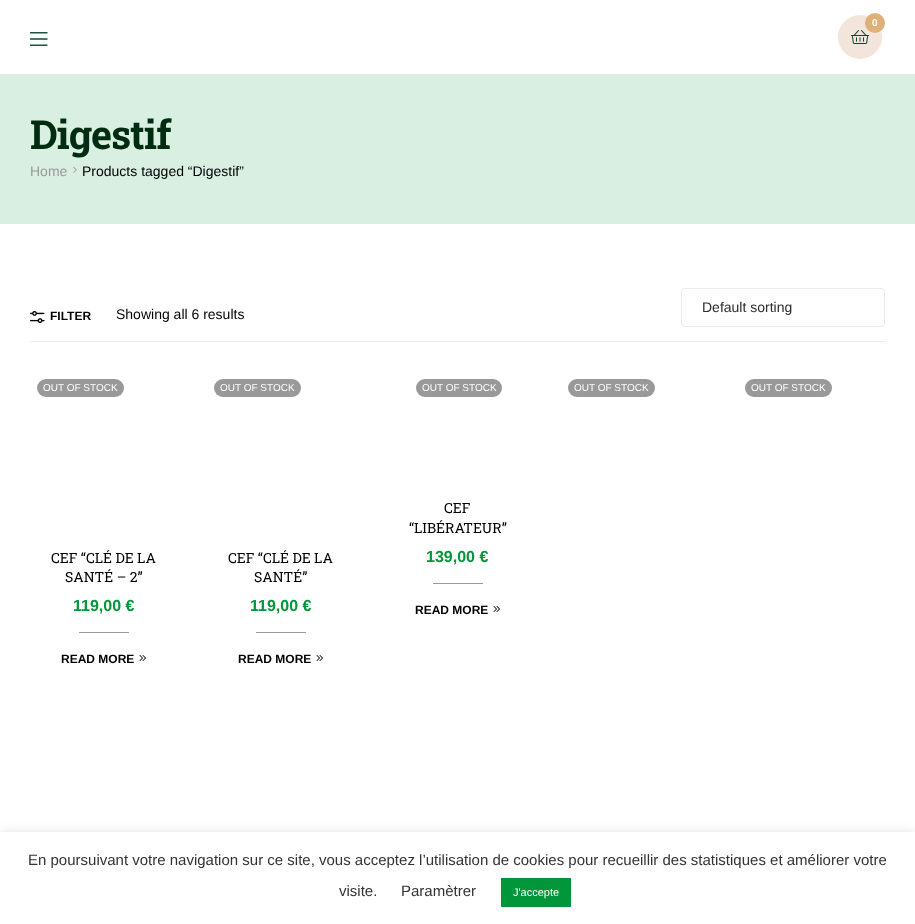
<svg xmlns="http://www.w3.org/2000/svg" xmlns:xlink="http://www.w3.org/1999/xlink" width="915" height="924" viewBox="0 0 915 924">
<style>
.cls-1{font:bold 10px Liberation Sans;fill:#ffffff}
.cls-2{font:bold 40px Roboto Slab;letter-spacing:-1px;fill:#002d11}
.cls-3{font:14px Liberation Sans;fill:#999999}
.cls-4{font:14px Liberation Sans;fill:#000000}
.cls-5{font:bold 12px Liberation Sans;fill:#000000}
.cls-6{font:14px Liberation Sans;fill:#2d2d2d}
.cls-7{font:10px Liberation Sans;fill:#ffffff}
.cls-8{font:14px Roboto Slab;fill:#000000}
.cls-9{font:bold 16px Liberation Sans;fill:#009639}
.cls-10{font:15px Liberation Sans;fill:#333333}
.cls-11{font:11px Liberation Sans;fill:#ffffff}
</style>
<rect width="100%" height="100%" fill="#ffffff"/>
<circle fill="#f3e4dc" cx="860" cy="37" r="22"/>
<image xlink:href="image0.png" x="851" y="30" width="18" height="14"/>
<circle fill="#dfb178" cx="875" cy="23" r="10"/>
<image xlink:href="image1.png" x="30" y="32" width="18" height="14"/>
<rect fill="#d9efe1" x="0" y="74" width="915" height="150"/>
<image xlink:href="image2.png" x="73" y="166" width="4" height="7"/>
<rect fill="#ebebeb" x="30" y="341" width="855" height="1"/>
<image xlink:href="image3.png" x="30" y="311" width="15" height="12"/>
<rect fill="none" stroke="#ebebeb" x="681.5" y="288.5" width="203" height="38" rx="3.5"/>
<rect fill="#999999" x="37" y="379" width="87" height="18" rx="9"/>
<rect fill="#999999" x="79" y="632" width="50" height="1"/>
<image xlink:href="image4.png" x="139" y="655" width="7" height="6"/>
<rect fill="#999999" x="214" y="379" width="87" height="18" rx="9"/>
<rect fill="#999999" x="256" y="632" width="50" height="1"/>
<image xlink:href="image4.png" x="316" y="655" width="7" height="6"/>
<rect fill="#999999" x="416" y="379" width="86" height="18" rx="9"/>
<rect fill="#999999" x="433" y="583" width="50" height="1"/>
<image xlink:href="image4.png" x="493" y="606" width="7" height="6"/>
<rect fill="#999999" x="568" y="379" width="87" height="18" rx="9"/>
<rect fill="#999999" x="745" y="379" width="87" height="18" rx="9"/>
<rect fill="#acabab" fill-opacity="0.3" filter="blur(5px)" x="0" y="831" width="915" height="92"/>
<rect fill="#ffffff" x="0" y="832" width="915" height="92"/>
<rect fill="#009639" x="501" y="878" width="70" height="29"/>
<text class="cls-1" x="872" y="26">0</text>
<text class="cls-2" x="30" y="149">Digestif</text>
<text class="cls-3" x="30" y="176">Home</text>
<text class="cls-4" x="82" y="176">Products tagged “Digestif”</text>
<text class="cls-5" x="50" y="320">FILTER</text>
<text class="cls-4" x="116" y="319">Showing all 6 results</text>
<text class="cls-6" x="702" y="312">Default sorting</text>
<text class="cls-7" x="43" y="391">OUT OF STOCK</text>
<text class="cls-8" x="51" y="563">CEF “CLÉ DE LA</text>
<text class="cls-8" x="65" y="582">SANTÉ – 2”</text>
<text class="cls-9" x="73" y="611">119,00 €</text>
<text class="cls-5" x="61" y="663">READ MORE</text>
<text class="cls-7" x="220" y="391">OUT OF STOCK</text>
<text class="cls-8" x="228" y="563">CEF “CLÉ DE LA</text>
<text class="cls-8" x="254" y="582">SANTÉ”</text>
<text class="cls-9" x="250" y="611">119,00 €</text>
<text class="cls-5" x="238" y="663">READ MORE</text>
<text class="cls-7" x="422" y="391">OUT OF STOCK</text>
<text class="cls-8" x="444" y="513">CEF</text>
<text class="cls-8" x="409" y="533">“LIBÉRATEUR”</text>
<text class="cls-9" x="426" y="562">139,00 €</text>
<text class="cls-5" x="415" y="614">READ MORE</text>
<text class="cls-7" x="574" y="391">OUT OF STOCK</text>
<text class="cls-7" x="751" y="391">OUT OF STOCK</text>
<text class="cls-10" x="28" y="865">En poursuivant votre navigation sur ce site, vous acceptez l’utilisation de cookies pour recueillir des statistiques et améliorer votre</text>
<text class="cls-10" x="339" y="896">visite.</text>
<text class="cls-10" x="401" y="896">Paramètrer</text>
<text class="cls-11" x="513" y="896">J'accepte</text>
</svg>
